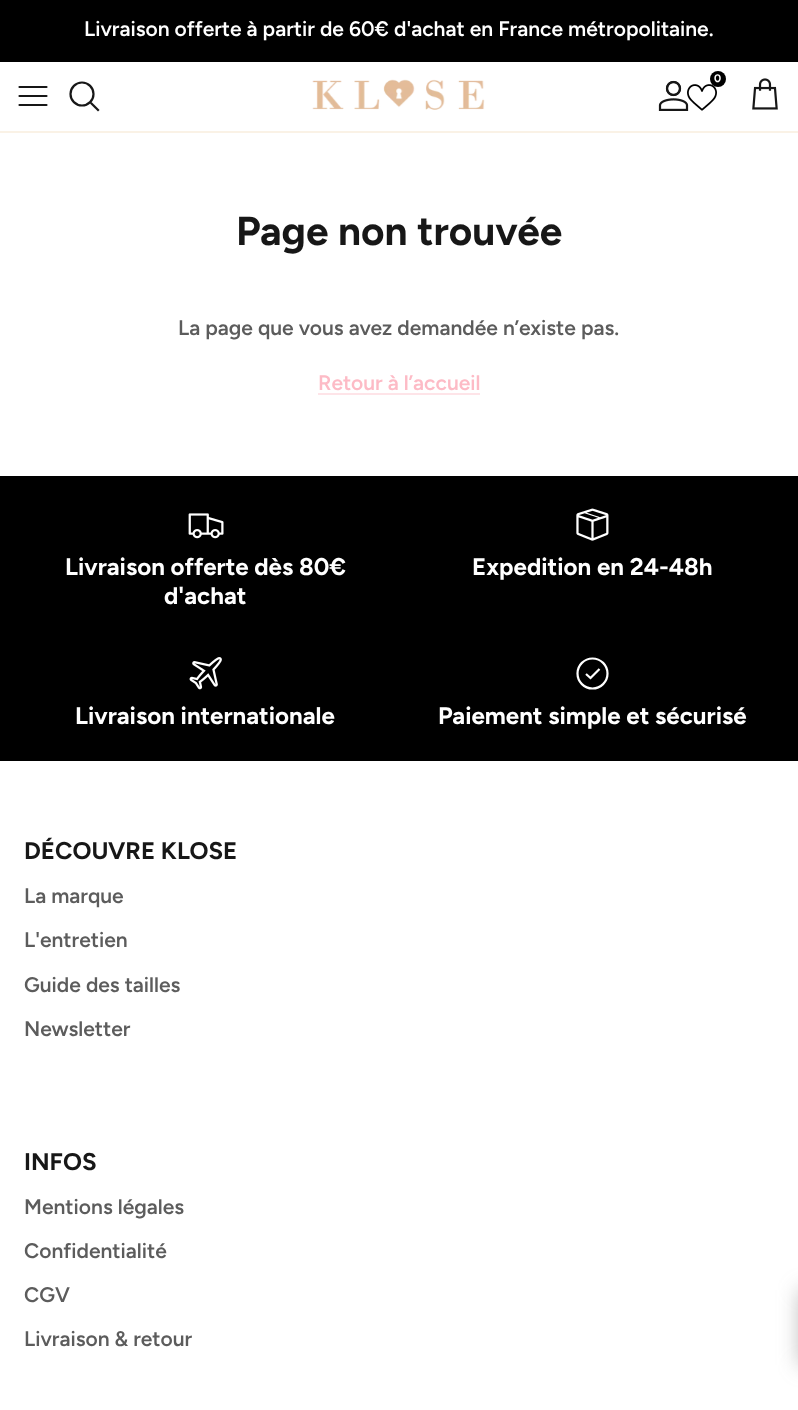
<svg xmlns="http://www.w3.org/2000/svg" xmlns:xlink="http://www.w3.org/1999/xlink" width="798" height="1410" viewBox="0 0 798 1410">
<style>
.cls-1{font:600 21px Figtree;fill:#ffffff}
.cls-2{font:bold 11px Figtree;fill:#ffffff}
.cls-3{font:bold 40.5px Figtree;fill:#171717}
.cls-4{font:600 21px Figtree;fill:#5c5c5c}
.cls-5{font:600 21px Figtree;fill:#fdbbc6}
.cls-6{font:bold 24.1px Figtree;fill:#ffffff}
.cls-7{font:bold 24.1px Figtree;fill:#171717}
</style>
<rect width="100%" height="100%" fill="#ffffff"/>
<rect fill="#000000" x="0" y="0" width="798" height="62"/>
<rect fill="#faf2e6" x="0" y="131" width="798" height="2"/>
<image xlink:href="image0.png" x="658" y="80" width="31" height="31"/>
<image xlink:href="image1.png" x="687" y="84" width="30" height="27"/>
<circle fill="#000000" cx="718" cy="79" r="8"/>
<image xlink:href="image2.png" x="752" y="78" width="26" height="32"/>
<path fill="none" stroke="#171717" stroke-width="2.2" stroke-linecap="round" stroke-linejoin="round" d="M19.5 96H46.5M19.5 87H46.5M19.5 105H46.5"/>
<circle fill="none" stroke="#171717" stroke-width="2.2" cx="82" cy="94" r="11.5"/>
<path fill="none" stroke="#171717" stroke-width="2.2" stroke-linecap="square" d="M91.5 103.5L98 110"/>
<image xlink:href="image3.png" x="312" y="79" width="173" height="31"/>
<rect fill="#fee4e8" x="318" y="393" width="162" height="2"/>
<rect fill="#000000" x="0" y="476" width="798" height="285"/>
<image xlink:href="image4.png" x="188" y="513" width="36" height="26"/>
<image xlink:href="image5.png" x="576" y="508" width="33" height="33"/>
<image xlink:href="image6.png" x="189" y="657" width="33" height="33"/>
<circle fill="none" stroke="#ffffff" stroke-width="2.2" cx="592.5" cy="673.5" r="15"/>
<path fill="none" stroke="#ffffff" stroke-width="2.2" d="M599.5 669L590.5 678L586 674"/>
<rect fill="#757575" fill-opacity="0.5" filter="blur(10.5px)" x="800" y="1290" width="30" height="75"/>
<text class="cls-1" x="84" y="36">Livraison offerte à partir de 60€ d'achat en France métropolitaine.</text>
<text class="cls-2" x="714" y="82">0</text>
<text class="cls-3" x="236" y="245">Page non trouvée</text>
<text class="cls-4" x="178" y="335">La page que vous avez demandée n’existe pas.</text>
<text class="cls-5" x="318" y="390">Retour à l’accueil</text>
<text class="cls-6" x="65" y="575">Livraison offerte dès 80€</text>
<text class="cls-6" x="164" y="604">d'achat</text>
<text class="cls-6" x="472" y="575">Expedition en 24-48h</text>
<text class="cls-6" x="75" y="724">Livraison internationale</text>
<text class="cls-6" x="438" y="724">Paiement simple et sécurisé</text>
<text class="cls-7" x="24" y="859">DÉCOUVRE KLOSE</text>
<text class="cls-4" x="24" y="903">La marque</text>
<text class="cls-4" x="24" y="947">L'entretien</text>
<text class="cls-4" x="24" y="992">Guide des tailles</text>
<text class="cls-4" x="24" y="1036">Newsletter</text>
<text class="cls-7" x="24" y="1170">INFOS</text>
<text class="cls-4" x="24" y="1214">Mentions légales</text>
<text class="cls-4" x="24" y="1258">Confidentialité</text>
<text class="cls-4" x="24" y="1302">CGV</text>
<text class="cls-4" x="24" y="1346">Livraison &amp; retour</text>
</svg>
